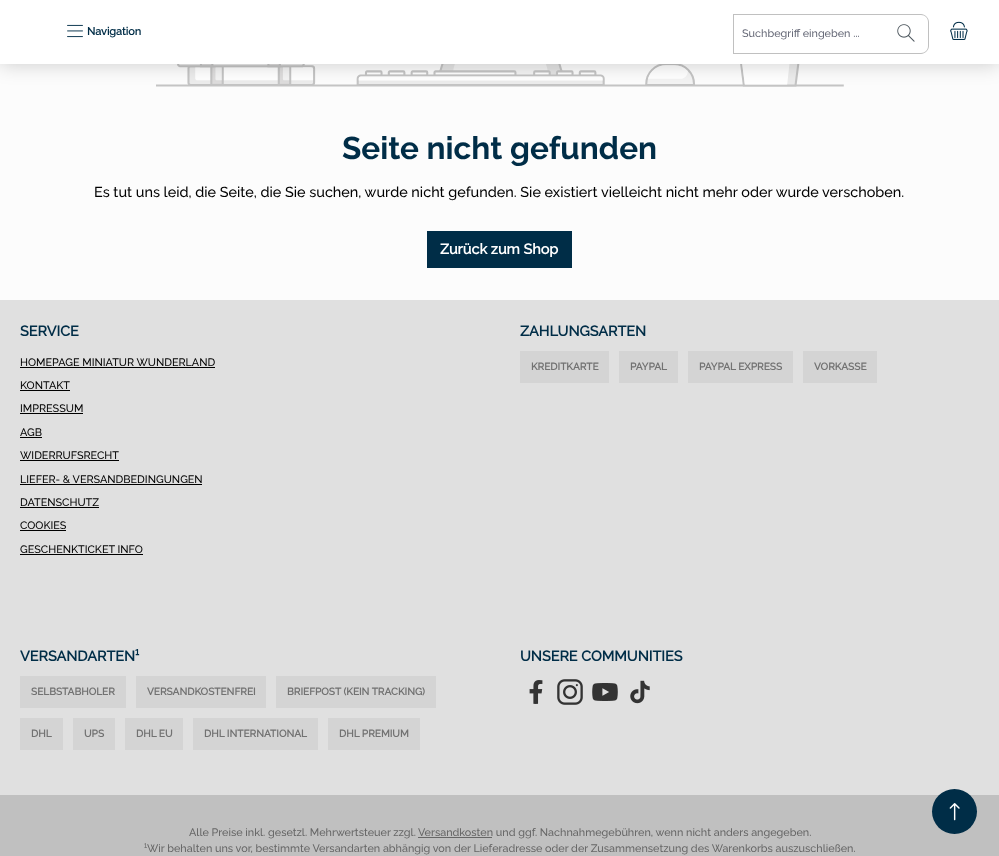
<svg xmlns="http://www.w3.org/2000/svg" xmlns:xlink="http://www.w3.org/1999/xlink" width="999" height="856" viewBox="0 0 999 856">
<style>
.cls-1{font:bold 10.8px 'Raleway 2';fill:#002d47}
.cls-2{font:500 10.8px Raleway;fill:#666977}
.cls-3{font:bold 31.5px Raleway;fill:#002d47}
.cls-4{font:500 14.4px Raleway;fill:#000000}
.cls-5{font:bold 14.4px 'Raleway 2';fill:#ffffff}
.cls-6{font:bold 14.4px 'Raleway 2';fill:#002d47}
.cls-7{font:500 10.8px Raleway;fill:#000000}
.cls-8{font:bold 10.1px 'Raleway 2';fill:#727272}
.cls-9{font:500 10.8px Raleway;fill:#666666}
</style>
<rect width="100%" height="100%" fill="#fcfcfc"/>
<image xlink:href="image3.png" x="156" y="64" width="688" height="23"/>
<rect fill="#000000" fill-opacity="0.2" filter="blur(10px)" x="0" y="0" width="999" height="64"/>
<rect fill="#ffffff" x="0" y="0" width="999" height="64"/>
<image xlink:href="image0.png" x="67" y="24" width="16" height="14"/>
<rect fill="none" stroke="#c0c0c0" x="733.5" y="14.5" width="151" height="39"/>
<path fill="#ffffff" d="M884 14H921C925.5 14 929 17.5 929 22V46C929 50.5 925.5 54 921 54H884Z"/>
<path fill="#c0c0c0" fill-rule="evenodd" d="M884 14H921C925 14 929 18 929 22V46C929 50 925 54 921 54H884ZM884 15H921C925 15 928 18 928 22V46C928 50 925 53 921 53H884Z"/>
<image xlink:href="image1.png" x="897" y="24" width="18" height="18"/>
<image xlink:href="image2.png" x="950" y="21" width="18" height="19"/>
<rect fill="#002d47" x="427" y="231" width="145" height="37"/>
<rect fill="#e0e0e0" x="0" y="300" width="999" height="495"/>
<rect fill="#000000" x="20" y="367" width="195" height="1"/>
<rect fill="#000000" x="20" y="390" width="50" height="1"/>
<rect fill="#000000" x="20" y="413" width="63" height="1"/>
<rect fill="#000000" x="20" y="437" width="22" height="1"/>
<rect fill="#000000" x="20" y="460" width="99" height="1"/>
<rect fill="#000000" x="20" y="484" width="182" height="1"/>
<rect fill="#000000" x="20" y="507" width="79" height="1"/>
<rect fill="#000000" x="20" y="530" width="46" height="1"/>
<rect fill="#000000" x="20" y="554" width="123" height="1"/>
<rect fill="#d4d4d4" x="520" y="351" width="89" height="32"/>
<rect fill="#d4d4d4" x="619" y="351" width="59" height="32"/>
<rect fill="#d4d4d4" x="688" y="351" width="105" height="32"/>
<rect fill="#d4d4d4" x="803" y="351" width="74" height="32"/>
<rect fill="#d4d4d4" x="20" y="676" width="106" height="32"/>
<rect fill="#d4d4d4" x="136" y="676" width="130" height="32"/>
<rect fill="#d4d4d4" x="276" y="676" width="160" height="32"/>
<rect fill="#d4d4d4" x="20" y="718" width="43" height="32"/>
<rect fill="#d4d4d4" x="73" y="718" width="42" height="32"/>
<rect fill="#d4d4d4" x="125" y="718" width="58" height="32"/>
<rect fill="#d4d4d4" x="193" y="718" width="125" height="32"/>
<rect fill="#d4d4d4" x="328" y="718" width="92" height="32"/>
<image xlink:href="image4.png" x="529" y="680" width="14" height="24"/>
<image xlink:href="image5.png" x="557" y="679" width="26" height="26"/>
<image xlink:href="image6.png" x="592" y="683" width="26" height="18"/>
<image xlink:href="image7.png" x="630" y="680" width="20" height="24"/>
<rect fill="#c0c0c0" x="0" y="795" width="999" height="61"/>
<rect fill="#666666" x="418" y="837" width="74" height="1"/>
<circle fill="#002d47" cx="954.5" cy="811.5" r="22.5"/>
<image xlink:href="image8.png" x="949" y="803" width="11" height="18"/>
<text class="cls-1" x="87" y="35">Navigation</text>
<text class="cls-2" x="742" y="37">Suchbegriff eingeben ...</text>
<text class="cls-3" x="342" y="159">Seite nicht gefunden</text>
<text class="cls-4" x="94" y="197">Es tut uns leid, die Seite, die Sie suchen, wurde nicht gefunden. Sie existiert vielleicht nicht mehr oder wurde verschoben.</text>
<text class="cls-5" x="440" y="254">Zurück zum Shop</text>
<text class="cls-6" x="20" y="336">SERVICE</text>
<text class="cls-7" x="20" y="366">HOMEPAGE MINIATUR WUNDERLAND</text>
<text class="cls-7" x="20" y="389">KONTAKT</text>
<text class="cls-7" x="20" y="412">IMPRESSUM</text>
<text class="cls-7" x="20" y="436">AGB</text>
<text class="cls-7" x="20" y="459">WIDERRUFSRECHT</text>
<text class="cls-7" x="20" y="483">LIEFER- &amp; VERSANDBEDINGUNGEN</text>
<text class="cls-7" x="20" y="506">DATENSCHUTZ</text>
<text class="cls-7" x="20" y="529">COOKIES</text>
<text class="cls-7" x="20" y="553">GESCHENKTICKET INFO</text>
<text class="cls-6" x="520" y="336">ZAHLUNGSARTEN</text>
<text class="cls-8" x="531" y="370">KREDITKARTE</text>
<text class="cls-8" x="630" y="370">PAYPAL</text>
<text class="cls-8" x="699" y="370">PAYPAL EXPRESS</text>
<text class="cls-8" x="814" y="370">VORKASSE</text>
<text class="cls-6" x="20" y="661">VERSANDARTEN¹</text>
<text class="cls-8" x="31" y="695">SELBSTABHOLER</text>
<text class="cls-8" x="147" y="695">VERSANDKOSTENFREI</text>
<text class="cls-8" x="287" y="695">BRIEFPOST (KEIN TRACKING)</text>
<text class="cls-8" x="31" y="737">DHL</text>
<text class="cls-8" x="84" y="737">UPS</text>
<text class="cls-8" x="136" y="737">DHL EU</text>
<text class="cls-8" x="204" y="737">DHL INTERNATIONAL</text>
<text class="cls-8" x="339" y="737">DHL PREMIUM</text>
<text class="cls-6" x="520" y="661">UNSERE COMMUNITIES</text>
<text class="cls-9" x="189" y="836">Alle Preise inkl. gesetzl. Mehrwertsteuer zzgl.</text>
<text class="cls-9" x="418" y="836">Versandkosten und ggf. Nachnahmegebühren, wenn nicht anders angegeben.</text>
<text class="cls-9" x="144" y="852">¹Wir behalten uns vor, bestimmte Versandarten abhängig von der Lieferadresse oder der Zusammensetzung des Warenkorbs auszuschließen.</text>
</svg>
